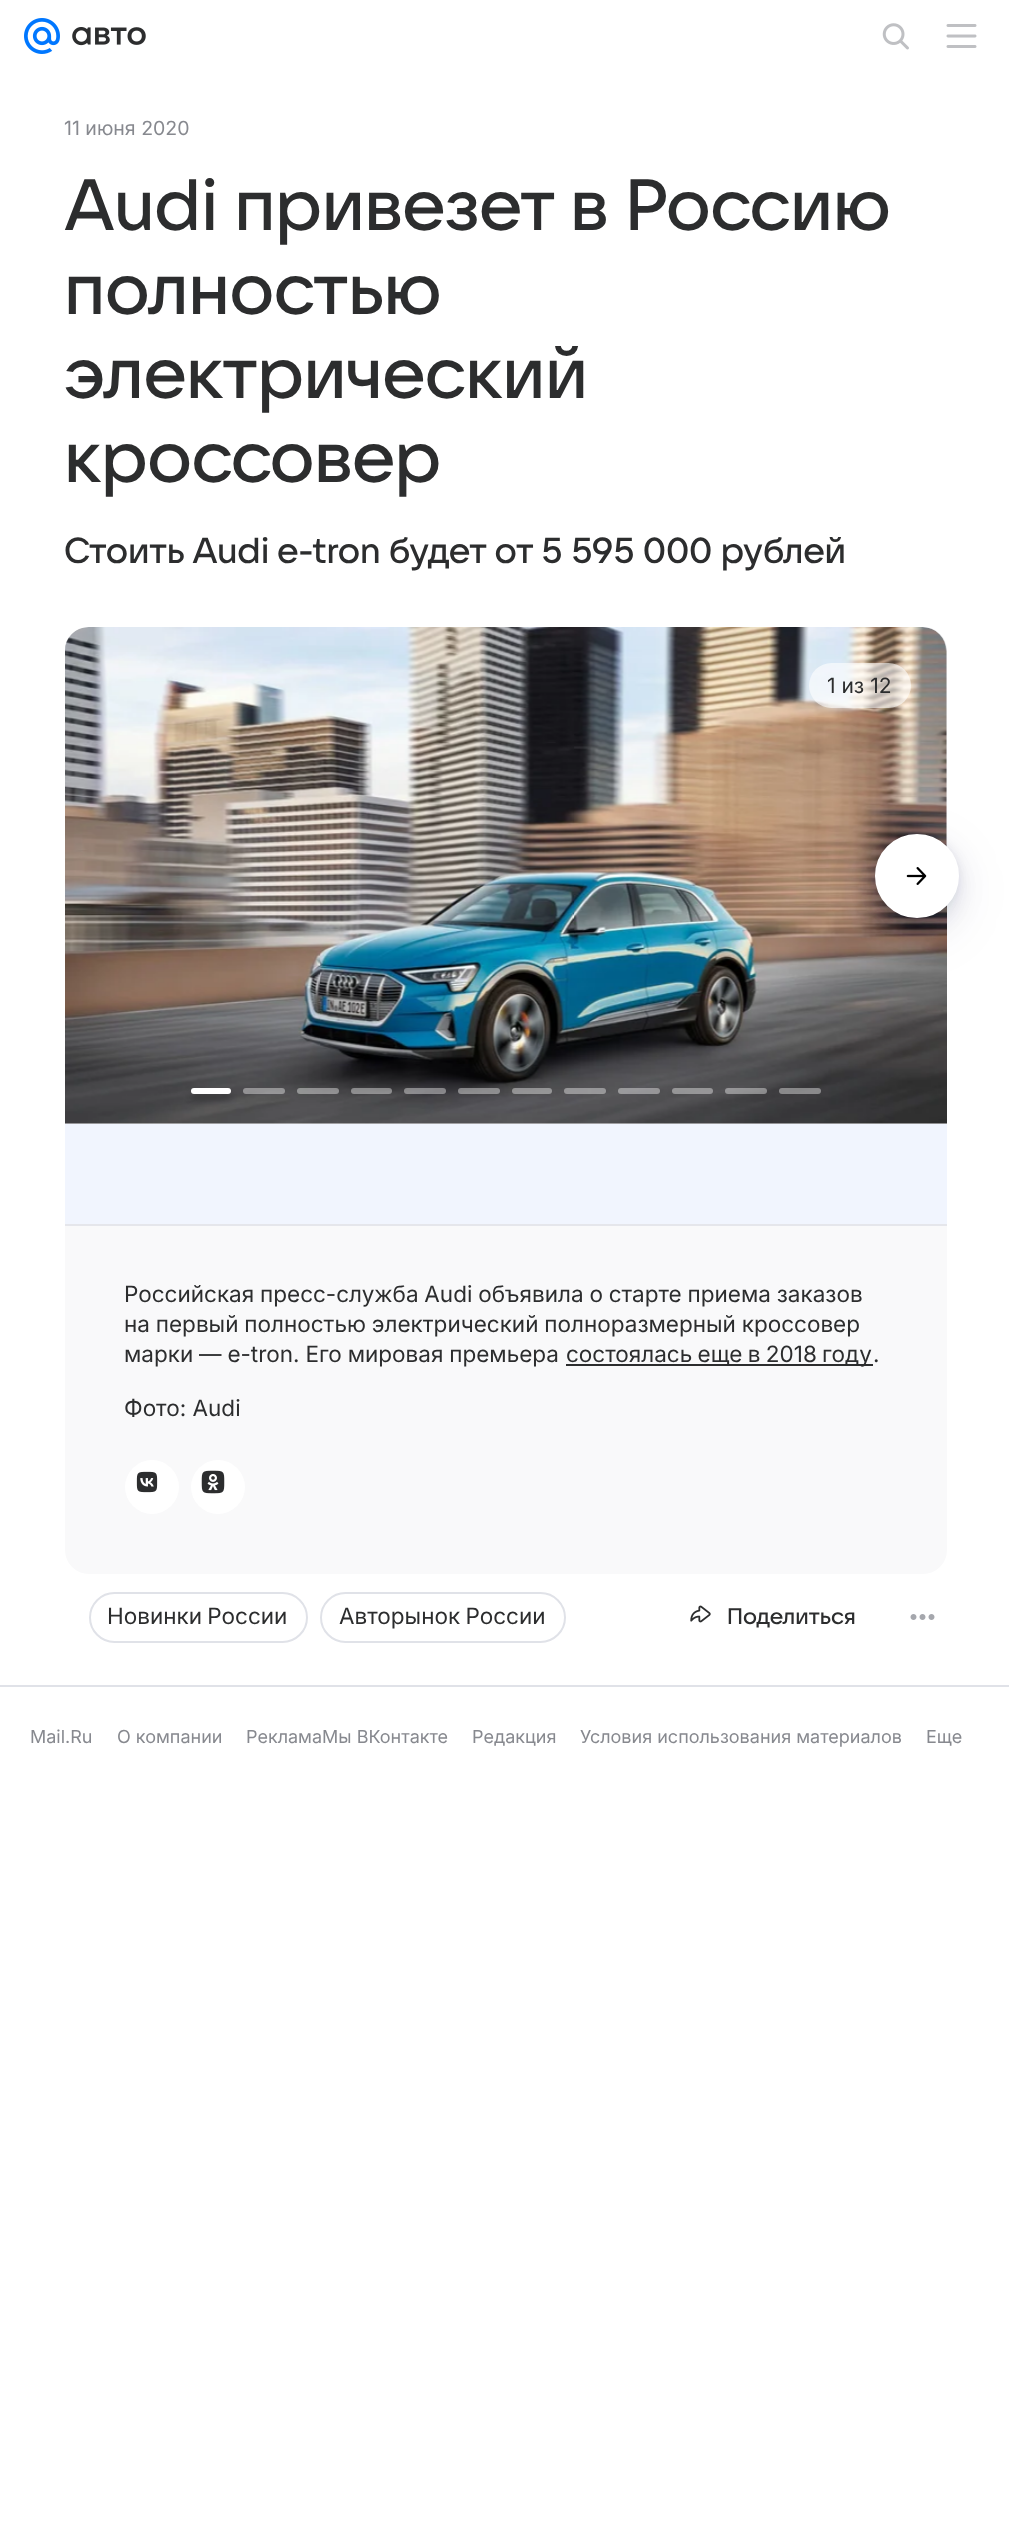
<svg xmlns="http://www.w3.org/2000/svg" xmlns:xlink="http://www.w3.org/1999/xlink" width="1009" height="2544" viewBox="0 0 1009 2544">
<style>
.cls-1{font:19.5px Inter;fill:#87898f}
.cls-2{font:500 72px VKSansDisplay;letter-spacing:-0.4px;fill:#2c2d2e}
.cls-3{font:500 36px VKSansDisplay;letter-spacing:-0.2px;fill:#2c2d2e}
.cls-4{font:21px Inter;fill:#2c2d2e}
.cls-5{font:22.5px Inter;fill:#2c2d2e}
.cls-6{font:500 22.5px VKSansDisplay;fill:#2c2d2e}
.cls-7{font:18px Inter;fill:#87898f}
</style>
<rect width="100%" height="100%" fill="#ffffff"/>
<image xlink:href="image0.png" x="24" y="18" width="36" height="36"/>
<image xlink:href="image1.png" x="72" y="27" width="74" height="19"/>
<image xlink:href="image2.png" x="882" y="23" width="27" height="27"/>
<image xlink:href="image3.png" x="946" y="24" width="31" height="24"/>
<rect fill="#f9f9fa" x="65" y="627" width="882" height="947" rx="24"/>
<path fill="#f0f1f3" d="M89 627H923C936.5 627 947 637.5 947 651V1124H65V651C65 637.5 75.5 627 89 627Z"/>
<image xlink:href="image5.png" x="65" y="627" width="882" height="497"/>
<rect fill="#ffffff" fill-opacity="0.6" x="809" y="663" width="102" height="45" rx="22.5"/>
<rect fill="#000000" fill-opacity="0.25" filter="blur(3px)" x="191" y="1094" width="40" height="6" rx="3"/>
<rect fill="#ffffff" x="191" y="1088" width="40" height="6" rx="3"/>
<rect fill="#ffffff" fill-opacity="0.4" x="243" y="1088" width="42" height="6" rx="3"/>
<rect fill="#ffffff" fill-opacity="0.4" x="297" y="1088" width="42" height="6" rx="3"/>
<rect fill="#ffffff" fill-opacity="0.4" x="351" y="1088" width="41" height="6" rx="3"/>
<rect fill="#ffffff" fill-opacity="0.4" x="404" y="1088" width="42" height="6" rx="3"/>
<rect fill="#ffffff" fill-opacity="0.4" x="458" y="1088" width="42" height="6" rx="3"/>
<rect fill="#ffffff" fill-opacity="0.4" x="512" y="1088" width="40" height="6" rx="3"/>
<rect fill="#ffffff" fill-opacity="0.4" x="564" y="1088" width="42" height="6" rx="3"/>
<rect fill="#ffffff" fill-opacity="0.4" x="618" y="1088" width="42" height="6" rx="3"/>
<rect fill="#ffffff" fill-opacity="0.4" x="672" y="1088" width="41" height="6" rx="3"/>
<rect fill="#ffffff" fill-opacity="0.4" x="725" y="1088" width="42" height="6" rx="3"/>
<rect fill="#ffffff" fill-opacity="0.4" x="779" y="1088" width="42" height="6" rx="3"/>
<rect fill="#00103d" fill-opacity="0.08" filter="blur(27px)" x="875" y="849" width="84" height="84" rx="42"/>
<rect fill="#00103d" fill-opacity="0.06" filter="blur(15px)" x="875" y="843" width="84" height="84" rx="42"/>
<rect fill="#00103d" fill-opacity="0.06" filter="blur(9px)" x="875" y="843" width="84" height="84" rx="42"/>
<rect fill="#00103d" fill-opacity="0.06" filter="blur(4.5px)" x="875" y="834" width="84" height="84" rx="42"/>
<circle fill="#ffffff" stroke="#ffffff" stroke-width="2" cx="917" cy="876" r="41"/>
<image xlink:href="image4.png" x="906" y="867" width="21" height="18"/>
<rect fill="#f1f5fe" x="65" y="1124" width="882" height="100"/>
<rect fill="#e5e6eb" x="65" y="1224" width="882" height="2"/>
<rect fill="#2c2d2e" x="566" y="1364" width="307" height="2"/>
<circle fill="#ffffff" cx="152" cy="1487" r="27"/>
<image xlink:href="image6.png" x="136" y="1471" width="22" height="22"/>
<circle fill="#ffffff" cx="218" cy="1487" r="27"/>
<image xlink:href="image7.png" x="201" y="1470" width="24" height="24"/>
<rect fill="none" stroke="#e0e2e8" stroke-width="2" x="90" y="1593" width="217" height="49" rx="24.5"/>
<rect fill="none" stroke="#e0e2e8" stroke-width="2" x="321" y="1593" width="244" height="49" rx="24.5"/>
<image xlink:href="image8.png" x="690" y="1605" width="21" height="18"/>
<image xlink:href="image9.png" x="910" y="1614" width="25" height="6"/>
<rect fill="#e0e2e8" x="0" y="1685" width="1009" height="2"/>
<text class="cls-1" x="64" y="135">11 июня 2020</text>
<text class="cls-2"><tspan x="64" y="230" word-spacing="-0.5">Audi привезет в Россию</tspan><tspan x="64" y="314">полностью</tspan><tspan x="64" y="398">электрический</tspan><tspan x="64" y="482">кроссовер</tspan></text>
<text class="cls-3" x="64" y="563">Стоить Audi e-tron будет от 5 595 000 рублей</text>
<text class="cls-4" x="827" y="693">1 из 12</text>
<text class="cls-5"><tspan x="124" y="1302" word-spacing="-0.5">Российская пресс-служба Audi объявила о старте приема заказов</tspan><tspan x="124" y="1332" word-spacing="-0.5">на первый полностью электрический полноразмерный кроссовер</tspan><tspan x="124" y="1362" word-spacing="-0.5">марки — e-tron. Его мировая премьера</tspan></text>
<text class="cls-5" x="566" y="1362" word-spacing="-1">состоялась еще в 2018 году</text>
<text class="cls-5" x="873" y="1362">.</text>
<text class="cls-5" x="124" y="1416">Фото: Audi</text>
<text class="cls-5" x="107" y="1624" word-spacing="-1">Новинки России</text>
<text class="cls-5" x="339" y="1624" word-spacing="-1">Авторынок России</text>
<text class="cls-6" x="727" y="1624">Поделиться</text>
<text class="cls-7" x="30" y="1743">Mail.Ru</text>
<text class="cls-7" x="117" y="1743">О компании</text>
<text class="cls-7" x="246" y="1743">РекламаМы ВКонтакте</text>
<text class="cls-7" x="472" y="1743">Редакция</text>
<text class="cls-7" x="580" y="1743">Условия использования материалов</text>
<text class="cls-7" x="926" y="1743">Еще</text>
</svg>
